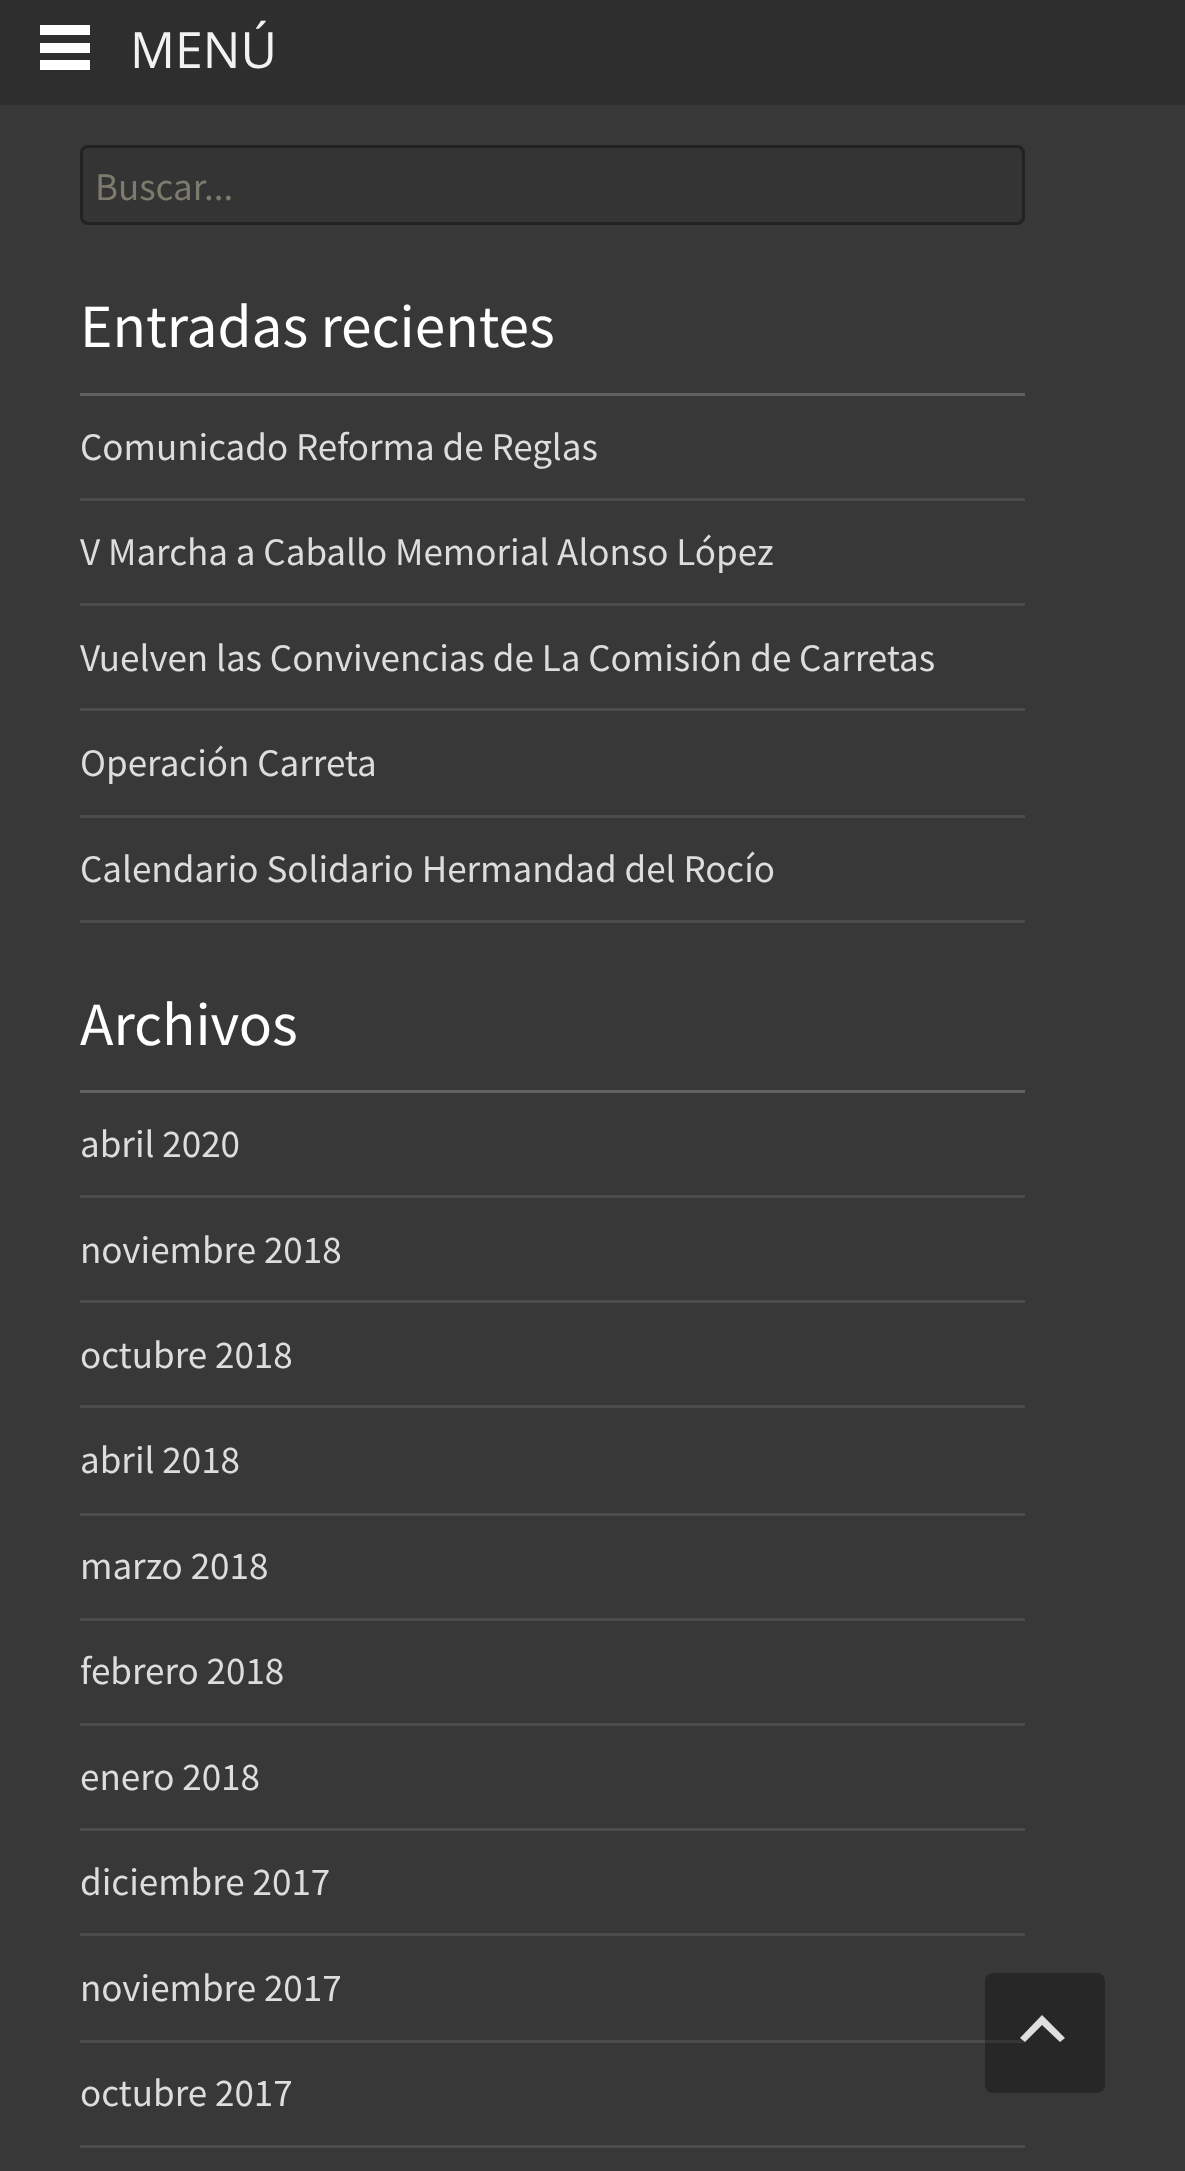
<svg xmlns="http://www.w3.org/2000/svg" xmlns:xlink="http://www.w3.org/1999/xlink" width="1185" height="2171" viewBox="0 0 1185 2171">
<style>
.cls-1{font:50px Open Sans;fill:#f2f2f2}
.cls-2{font:35px Noto Sans JP;fill:#7d7b6d}
.cls-3{font:55px Noto Sans JP;fill:#ffffff}
.cls-4{font:35px Noto Sans JP;fill:#dddddd}
</style>
<rect width="100%" height="100%" fill="#383838"/>
<rect fill="#2e2e2e" x="0" y="0" width="1185" height="105"/>
<rect fill="#ffffff" x="40" y="25" width="50" height="10"/>
<rect fill="#ffffff" x="40" y="43" width="50" height="10"/>
<rect fill="#ffffff" x="40" y="60" width="50" height="10"/>
<rect fill="#343434" stroke="#222222" stroke-width="3" x="81.5" y="146.5" width="942" height="77" rx="6.5"/>
<rect fill="#606060" x="80" y="393" width="945" height="3"/>
<rect fill="#4c4c4c" x="80" y="498" width="945" height="3"/>
<rect fill="#4c4c4c" x="80" y="603" width="945" height="3"/>
<rect fill="#4c4c4c" x="80" y="708" width="945" height="3"/>
<rect fill="#4c4c4c" x="80" y="815" width="945" height="3"/>
<rect fill="#4c4c4c" x="80" y="920" width="945" height="3"/>
<rect fill="#606060" x="80" y="1090" width="945" height="3"/>
<rect fill="#4c4c4c" x="80" y="1195" width="945" height="3"/>
<rect fill="#4c4c4c" x="80" y="1300" width="945" height="3"/>
<rect fill="#4c4c4c" x="80" y="1405" width="945" height="3"/>
<rect fill="#4c4c4c" x="80" y="1513" width="945" height="3"/>
<rect fill="#4c4c4c" x="80" y="1618" width="945" height="3"/>
<rect fill="#4c4c4c" x="80" y="1723" width="945" height="3"/>
<rect fill="#4c4c4c" x="80" y="1828" width="945" height="3"/>
<rect fill="#4c4c4c" x="80" y="1933" width="945" height="3"/>
<rect fill="#4c4c4c" x="80" y="2040" width="945" height="3"/>
<rect fill="#4c4c4c" x="80" y="2145" width="945" height="3"/>
<rect fill="#000000" fill-opacity="0.3" x="985" y="1973" width="120" height="120" rx="8"/>
<path fill="#dfdfdf" d="M1060 2042L1042 2025L1025 2042L1020 2038L1042 2015L1065 2038Z"/>
<text class="cls-1" x="130" y="68">MENÚ</text>
<text class="cls-2" x="95" y="200">Buscar...</text>
<text class="cls-3" x="80" y="347">Entradas recientes</text>
<text class="cls-4" x="80" y="460">Comunicado Reforma de Reglas</text>
<text class="cls-4" x="80" y="565">V Marcha a Caballo Memorial Alonso López</text>
<text class="cls-4" x="80" y="671">Vuelven las Convivencias de La Comisión de Carretas</text>
<text class="cls-4" x="80" y="776">Operación Carreta</text>
<text class="cls-4" x="80" y="882">Calendario Solidario Hermandad del Rocío</text>
<text class="cls-3" x="80" y="1045">Archivos</text>
<text class="cls-4" x="80" y="1157">abril 2020</text>
<text class="cls-4" x="80" y="1263">noviembre 2018</text>
<text class="cls-4" x="80" y="1368">octubre 2018</text>
<text class="cls-4" x="80" y="1473">abril 2018</text>
<text class="cls-4" x="80" y="1579">marzo 2018</text>
<text class="cls-4" x="80" y="1684">febrero 2018</text>
<text class="cls-4" x="80" y="1790">enero 2018</text>
<text class="cls-4" x="80" y="1895">diciembre 2017</text>
<text class="cls-4" x="80" y="2001">noviembre 2017</text>
<text class="cls-4" x="80" y="2106">octubre 2017</text>
</svg>
